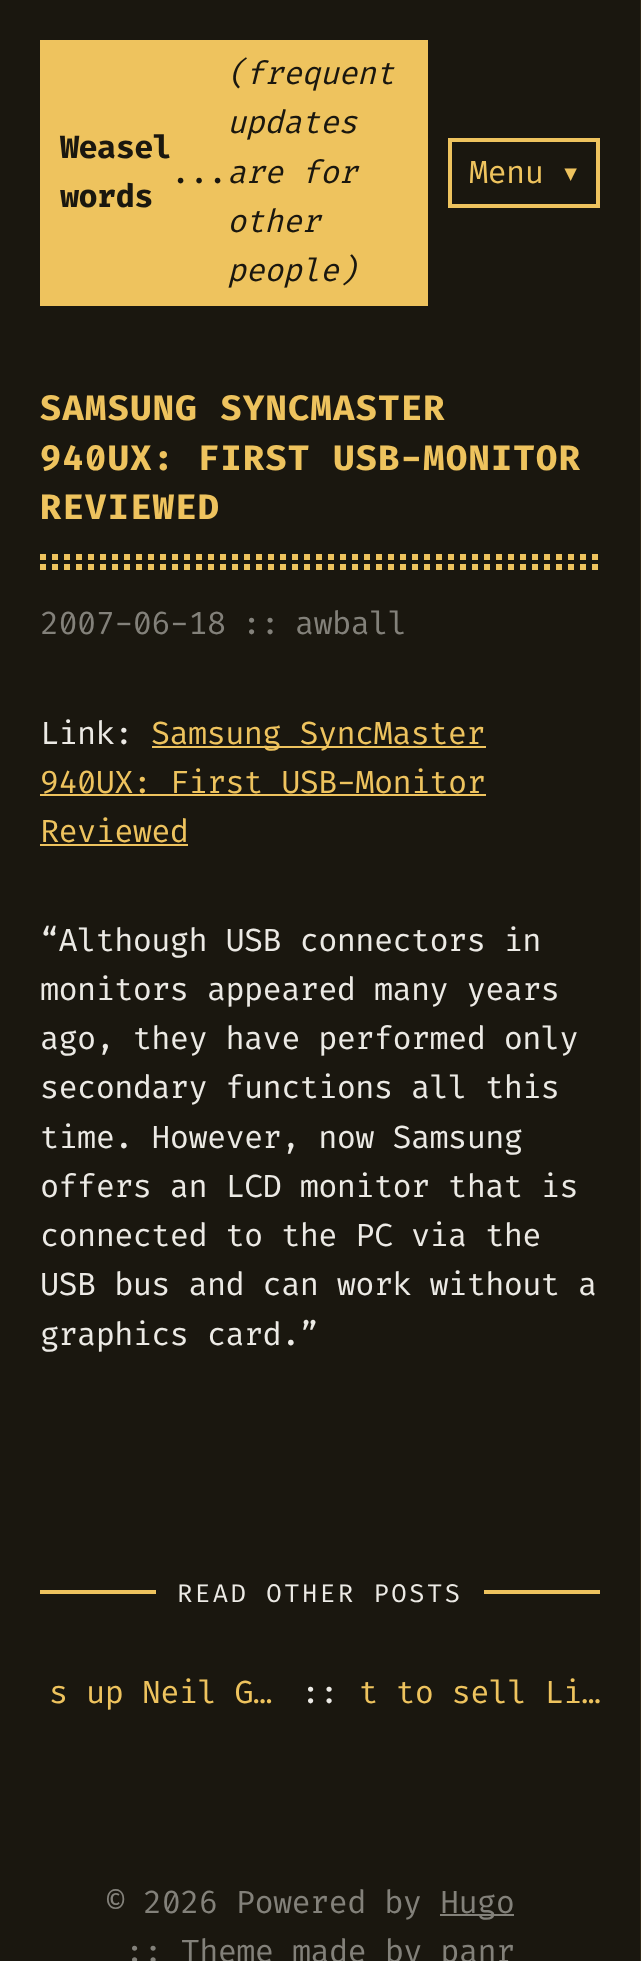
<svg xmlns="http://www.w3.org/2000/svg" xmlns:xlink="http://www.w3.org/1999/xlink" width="641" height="1961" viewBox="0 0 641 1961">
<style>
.cls-1{font:bold 32px Fira Code;letter-spacing:-0.65px;fill:#1a170f}
.cls-2{font:32px Fira Code;letter-spacing:-0.65px;fill:#1a170f}
.cls-3{font:italic 32px Fira Code;letter-spacing:-0.65px;fill:#1a170f}
.cls-4{font:32px Fira Code;letter-spacing:-0.65px;fill:#eec35e}
.cls-5{font:32px DejaVu Sans Mono;letter-spacing:-0.65px;fill:#eec35e}
.cls-6{font:bold 35.25px Fira Code;letter-spacing:1.4px;fill:#eec35e}
.cls-7{font:32px Fira Code;letter-spacing:-0.65px;fill:#83817a}
.cls-8{font:32px Fira Code;letter-spacing:-0.65px;fill:#eceae5}
.cls-9{font:25.6px Fira Code;letter-spacing:2.5px;fill:#eceae5}
</style>
<rect width="100%" height="100%" fill="#1a170f"/>
<rect fill="#2f2817" x="640" y="0" width="1" height="1961"/>
<rect fill="#eec35e" x="40" y="40" width="388" height="266"/>
<rect fill="none" stroke="#eec35e" stroke-width="4" x="450" y="140" width="148" height="66"/>
<path fill="none" stroke="#eec35e" stroke-width="6" stroke-dasharray="6 6" d="M40 567H600"/>
<path fill="none" stroke="#eec35e" stroke-width="6" stroke-dasharray="6 6" d="M40 557H600"/>
<rect fill="#eec35e" x="152" y="746" width="334" height="2"/>
<rect fill="#eec35e" x="40" y="794" width="446" height="2"/>
<rect fill="#eec35e" x="40" y="844" width="148" height="2"/>
<rect fill="#eec35e" x="40" y="1590" width="560" height="4"/>
<rect fill="#1a170f" x="156" y="1590" width="328" height="4"/>
<rect fill="#83817a" x="440" y="1914" width="74" height="2"/>
<text class="cls-1"><tspan x="60" y="158">Weasel</tspan><tspan x="60" y="207">words</tspan></text>
<text class="cls-2" x="171" y="183">...</text>
<text class="cls-3"><tspan x="227" y="84">(frequent</tspan><tspan x="227" y="133">updates</tspan><tspan x="227" y="183">are for</tspan><tspan x="227" y="232">other</tspan><tspan x="227" y="281">people)</tspan></text>
<text class="cls-4" x="469" y="183">Menu</text>
<text class="cls-5" x="561" y="183">▾</text>
<text class="cls-6"><tspan x="40" y="420">SAMSUNG SYNCMASTER</tspan><tspan x="40" y="470">940UX: FIRST USB-MONITOR</tspan><tspan x="40" y="519">REVIEWED</tspan></text>
<text class="cls-7" x="40" y="634">2007-06-18</text>
<text class="cls-7" x="242" y="634">::</text>
<text class="cls-7" x="295" y="634">awball</text>
<text class="cls-8" x="40" y="744">Link:</text>
<text class="cls-4" x="151" y="744">Samsung SyncMaster</text>
<text class="cls-4"><tspan x="40" y="793">940UX: First USB-Monitor</tspan><tspan x="40" y="842">Reviewed</tspan></text>
<text class="cls-8"><tspan x="40" y="951">“Although USB connectors in</tspan><tspan x="40" y="1000">monitors appeared many years</tspan><tspan x="40" y="1049">ago, they have performed only</tspan><tspan x="40" y="1098">secondary functions all this</tspan><tspan x="40" y="1148">time. However, now Samsung</tspan><tspan x="40" y="1197">offers an LCD monitor that is</tspan><tspan x="40" y="1246">connected to the PC via the</tspan><tspan x="40" y="1295">USB bus and can work without a</tspan><tspan x="40" y="1345">graphics card.”</tspan></text>
<text class="cls-9" x="177" y="1602">READ OTHER POSTS</text>
<text class="cls-4" x="49" y="1703">s up Neil G…</text>
<text class="cls-8" x="301" y="1703">::</text>
<text class="cls-4" x="359" y="1703">t to sell Li…</text>
<text class="cls-7" x="106" y="1913">© 2026 Powered by</text>
<text class="cls-7" x="440" y="1913">Hugo</text>
<text class="cls-7" x="125" y="1962">:: Theme made by panr</text>
</svg>
